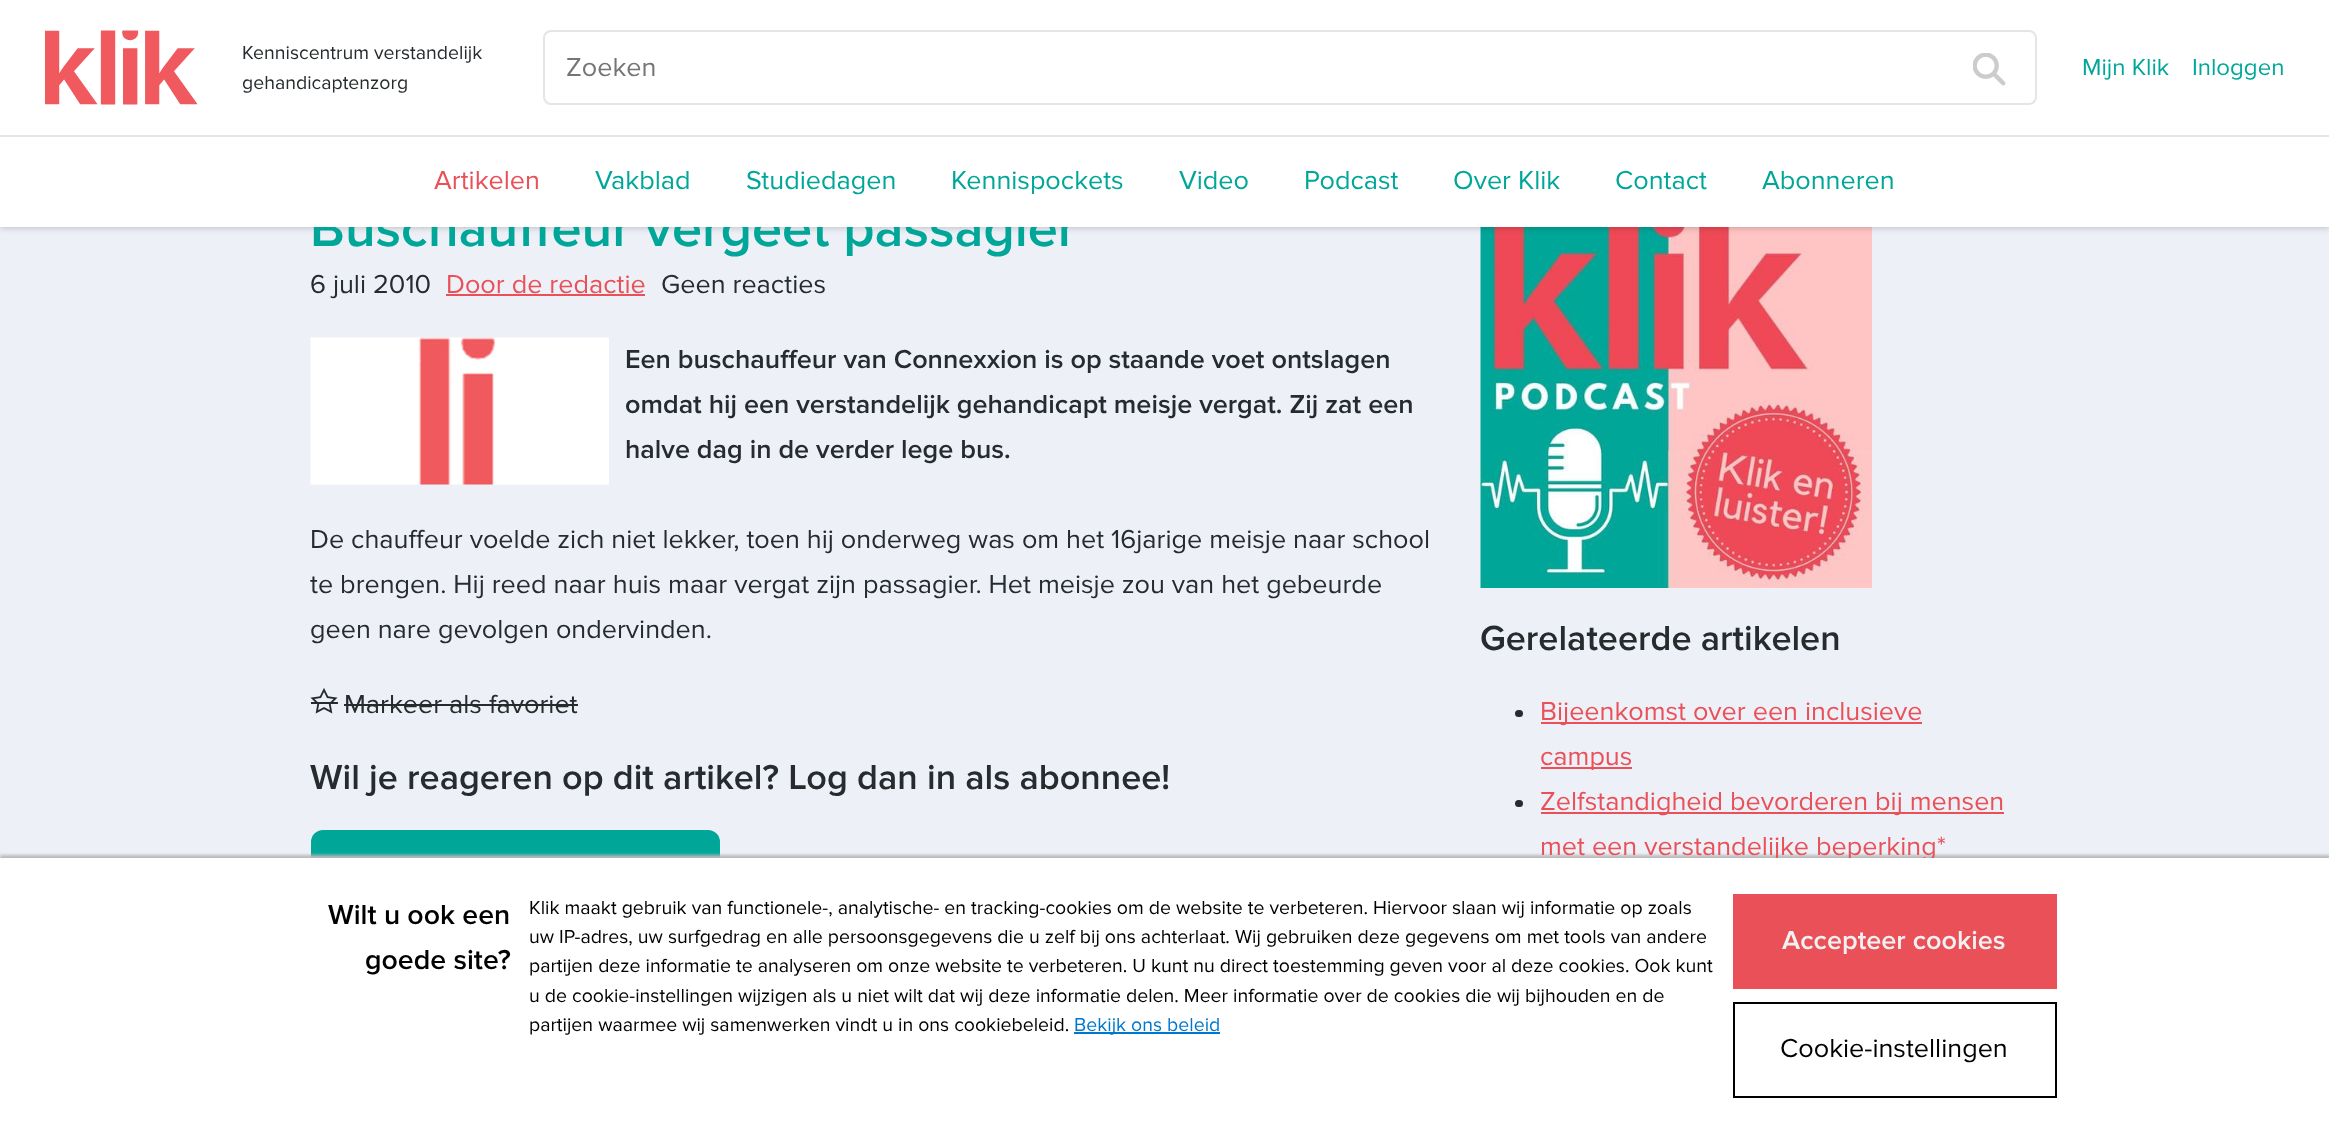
<svg xmlns="http://www.w3.org/2000/svg" xmlns:xlink="http://www.w3.org/1999/xlink" width="2329" height="1134" viewBox="0 0 2329 1134">
<style>
.cls-1{font:600 54px Proxima Nova;fill:#00a799}
.cls-2{font:27px Proxima Nova;fill:#757575}
.cls-3{font:27px Proxima Nova;fill:#00a799}
.cls-4{font:27px Proxima Nova;fill:#ea5058}
.cls-5{font:24px Proxima Nova;fill:#00a799}
.cls-6{font:19.5px Proxima Nova;fill:#262b2e}
.cls-7{font:27px Proxima Nova;fill:#262b2e}
.cls-8{font:600 27px Proxima Nova;fill:#262b2e}
.cls-9{font:600 36px Proxima Nova;fill:#262b2e}
.cls-10{font:600 28.5px Proxima Nova;fill:#000000}
.cls-11{font:19.5px Proxima Nova;fill:#000000}
.cls-12{font:19.5px Proxima Nova;fill:#0077cc}
.cls-13{font:600 27px Proxima Nova;fill:#f1f1f1}
.cls-14{font:27px Proxima Nova;fill:#000000}
</style>
<rect width="100%" height="100%" fill="#eef0f7"/>
<image xlink:href="image4.png" x="1480" y="227" width="392" height="361"/>
<rect fill="#000000" fill-opacity="0.2" filter="blur(3px)" x="0" y="2" width="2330" height="226"/>
<rect fill="#ea5058" x="446" y="294" width="199" height="2"/>
<image xlink:href="image2.png" x="310" y="337" width="299" height="148"/>
<image xlink:href="image3.png" x="310" y="688" width="28" height="26"/>
<rect fill="#262b2e" x="311" y="702" width="27" height="2"/>
<rect fill="#262b2e" x="344" y="704" width="234" height="2"/>
<rect fill="#00a799" x="311" y="830" width="409" height="72" rx="12"/>
<rect fill="#262b2e" x="1515" y="710" width="8" height="7" rx="3.5"/>
<rect fill="#ea5058" x="1541" y="722" width="381" height="2"/>
<rect fill="#ea5058" x="1541" y="767" width="91" height="2"/>
<rect fill="#262b2e" x="1515" y="800" width="8" height="7" rx="3.5"/>
<rect fill="#ea5058" x="1541" y="812" width="463" height="2"/>
<rect fill="#bababa" filter="blur(1.5px)" x="0" y="855" width="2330" height="276"/>
<text class="cls-1" x="310" y="246">Buschauffeur vergeet passagier</text>
<rect fill="#ffffff" x="0" y="0" width="2329" height="227"/>
<rect fill="none" stroke="#e5e5e5" stroke-width="2" x="544" y="31" width="1492" height="73" rx="7"/>
<image xlink:href="image1.png" x="1973" y="53" width="33" height="33"/>
<text class="cls-2" x="566" y="76">Zoeken</text>
<text class="cls-3" x="1762" y="189">Abonneren</text>
<text class="cls-3" x="1615" y="189">Contact</text>
<text class="cls-3" x="1453" y="189">Over Klik</text>
<text class="cls-3" x="1304" y="189">Podcast</text>
<text class="cls-3" x="1179" y="189">Video</text>
<text class="cls-3" x="951" y="189">Kennispockets</text>
<text class="cls-3" x="746" y="189">Studiedagen</text>
<text class="cls-3" x="595" y="189">Vakblad</text>
<text class="cls-4" x="434" y="189">Artikelen</text>
<text class="cls-5" x="2192" y="75">Inloggen</text>
<text class="cls-5" x="2082" y="75">Mijn Klik</text>
<text class="cls-6" x="242" y="89">gehandicaptenzorg</text>
<text class="cls-6" x="242" y="59">Kenniscentrum verstandelijk</text>
<image xlink:href="image0.png" x="45" y="30" width="153" height="75"/>
<rect fill="#e5e5e5" x="0" y="135" width="2329" height="2"/>
<text class="cls-7" x="310" y="293">6 juli 2010</text>
<text class="cls-4" x="446" y="293">Door de redactie</text>
<text class="cls-7" x="661" y="293">Geen reacties</text>
<text class="cls-8"><tspan x="625" y="368">Een buschauffeur van Connexxion is op staande voet ontslagen</tspan><tspan x="625" y="413">omdat hij een verstandelijk gehandicapt meisje vergat. Zij zat een</tspan><tspan x="625" y="458">halve dag in de verder lege bus.</tspan></text>
<text class="cls-7"><tspan x="310" y="548">De chauffeur voelde zich niet lekker, toen hij onderweg was om het 16jarige meisje naar school</tspan><tspan x="310" y="593">te brengen. Hij reed naar huis maar vergat zijn passagier. Het meisje zou van het gebeurde</tspan><tspan x="310" y="638">geen nare gevolgen ondervinden.</tspan></text>
<text class="cls-7" x="344" y="713">Markeer als favoriet</text>
<text class="cls-9" x="310" y="789">Wil je reageren op dit artikel? Log dan in als abonnee!</text>
<text class="cls-9" x="1480" y="650">Gerelateerde artikelen</text>
<text class="cls-4"><tspan x="1540" y="720">Bijeenkomst over een inclusieve</tspan><tspan x="1540" y="765">campus</tspan><tspan x="1540" y="810">Zelfstandigheid bevorderen bij mensen</tspan><tspan x="1540" y="855">met een verstandelijke beperking*</tspan></text>
<rect fill="#ffffff" x="0" y="858" width="2329" height="276"/>
<text class="cls-10" x="328" y="924">Wilt u ook een</text>
<text class="cls-10" x="365" y="969">goede site?</text>
<text class="cls-11"><tspan x="529" y="914">Klik maakt gebruik van functionele-, analytische- en tracking-cookies om de website te verbeteren. Hiervoor slaan wij informatie op zoals</tspan><tspan x="529" y="943">uw IP-adres, uw surfgedrag en alle persoonsgegevens die u zelf bij ons achterlaat. Wij gebruiken deze gegevens om met tools van andere</tspan><tspan x="529" y="972">partijen deze informatie te analyseren om onze website te verbeteren. U kunt nu direct toestemming geven voor al deze cookies. Ook kunt</tspan><tspan x="529" y="1002">u de cookie-instellingen wijzigen als u niet wilt dat wij deze informatie delen. Meer informatie over de cookies die wij bijhouden en de</tspan><tspan x="529" y="1031">partijen waarmee wij samenwerken vindt u in ons cookiebeleid.</tspan></text>
<rect fill="#0077cc" x="1074" y="1032" width="146" height="2"/>
<text class="cls-12" x="1074" y="1031">Bekijk ons beleid</text>
<rect fill="#ea5058" x="1733" y="894" width="324" height="95"/>
<text class="cls-13" x="1782" y="949">Accepteer cookies</text>
<rect fill="none" stroke="#000000" stroke-width="2" x="1734" y="1003" width="322" height="94"/>
<text class="cls-14" x="1780" y="1057">Cookie-instellingen</text>
</svg>
